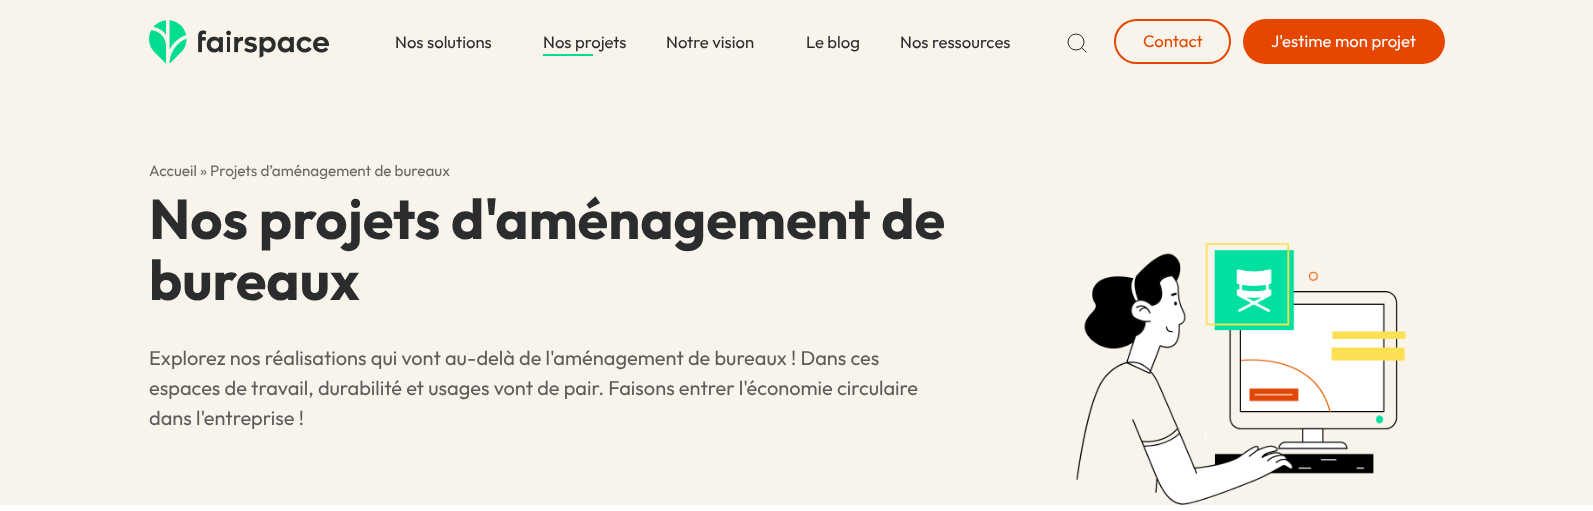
<svg xmlns="http://www.w3.org/2000/svg" xmlns:xlink="http://www.w3.org/1999/xlink" width="1593" height="511" viewBox="0 0 1593 511">
<style>
.cls-1{font:16.75px Outfit;fill:#2b2c2d}
.cls-2{font:16.75px Outfit;fill:#e54600}
.cls-3{font:16.75px Outfit;fill:#ffffff}
.cls-4{font:15.25px Outfit;fill:#696866}
.cls-5{font:bold 56px Outfit;fill:#2b2c2d}
.cls-6{font:20px Outfit;fill:#5c5c5c}
</style>
<rect width="100%" height="100%" fill="#ffffff"/>
<rect fill="#f9f4eb" x="0" y="0" width="1593" height="505"/>
<image xlink:href="image0.png" x="149" y="20" width="180" height="44"/>
<rect fill="#00dd90" x="543" y="54" width="50" height="2"/>
<circle fill="none" stroke="#2b2c2d" cx="1076" cy="42" r="8"/>
<path fill="none" stroke="#2b2c2d" stroke-linecap="round" stroke-linejoin="round" d="M1086 52L1081.5 47.5"/>
<rect fill="none" stroke="#e54600" stroke-width="2" x="1115" y="20" width="115" height="43" rx="21.5"/>
<rect fill="#e54600" x="1243" y="19" width="202" height="45" rx="22.5"/>
<image xlink:href="image1.png" x="1076" y="243" width="330" height="262"/>
<text class="cls-1" x="395" y="48">Nos solutions</text>
<text class="cls-1" x="543" y="48">Nos projets</text>
<text class="cls-1" x="666" y="48">Notre vision</text>
<text class="cls-1" x="806" y="48">Le blog</text>
<text class="cls-1" x="900" y="48">Nos ressources</text>
<text class="cls-2" x="1143" y="47">Contact</text>
<text class="cls-3" x="1271" y="47">J'estime mon projet</text>
<text class="cls-4" x="149" y="176">Accueil » Projets d’aménagement de bureaux</text>
<text class="cls-5"><tspan x="149" y="239">Nos projets d'aménagement de</tspan><tspan x="149" y="300">bureaux</tspan></text>
<text class="cls-6"><tspan x="149" y="365">Explorez nos réalisations qui vont au-delà de l'aménagement de bureaux ! Dans ces</tspan><tspan x="149" y="395">espaces de travail, durabilité et usages vont de pair. Faisons entrer l'économie circulaire</tspan><tspan x="149" y="425">dans l'entreprise !</tspan></text>
</svg>
